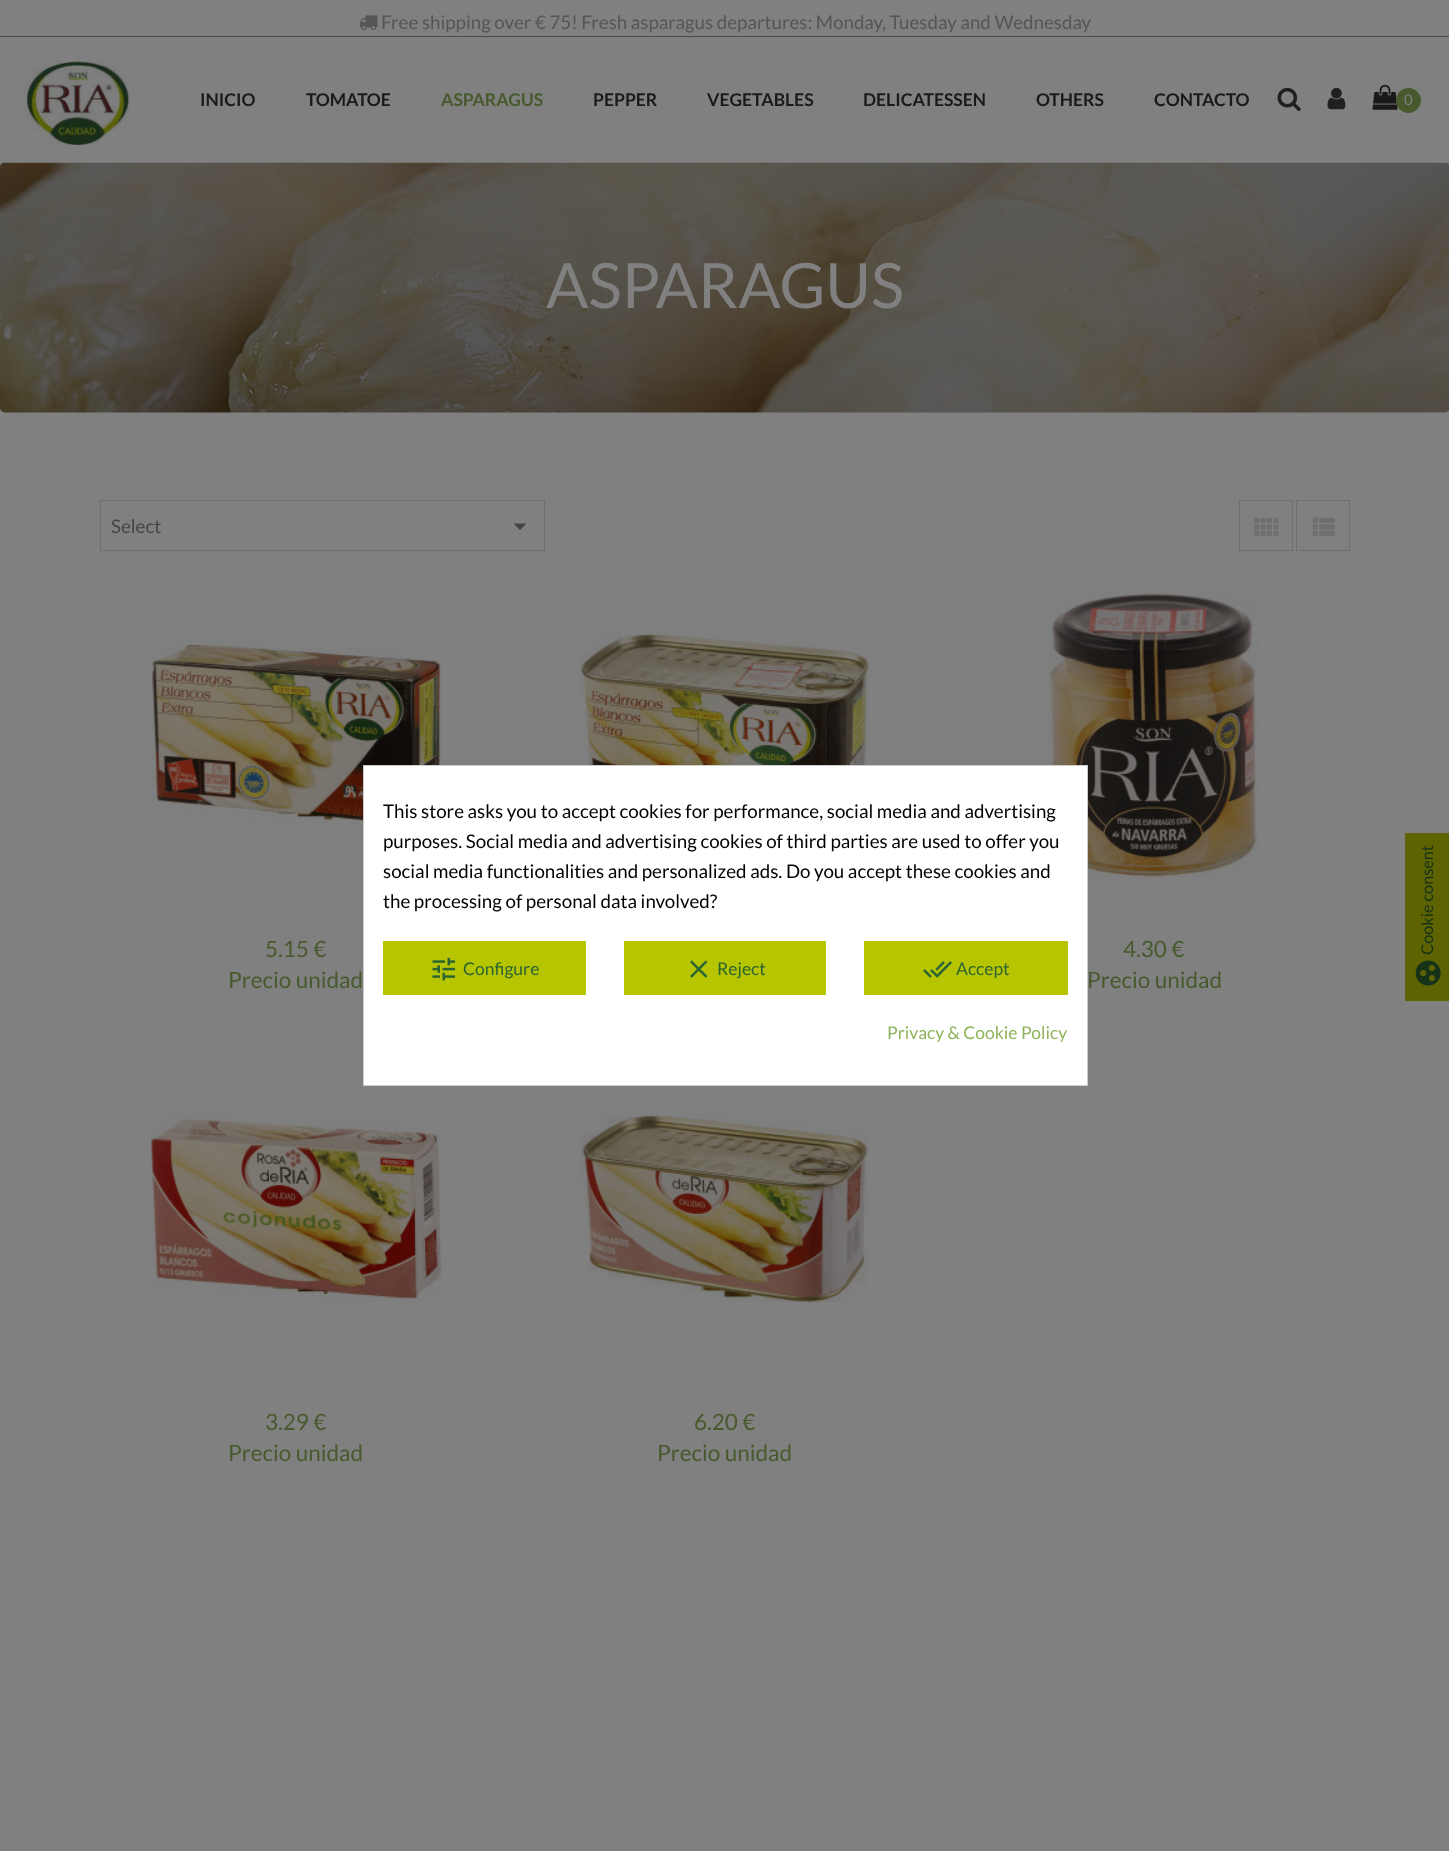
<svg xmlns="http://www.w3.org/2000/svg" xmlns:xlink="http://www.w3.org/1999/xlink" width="1449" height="1851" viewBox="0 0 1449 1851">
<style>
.cls-1{font:18.75px Lato;fill:#565553}
.cls-2{font:bold 17.5px Lato;fill:#1a1a1a}
.cls-3{font:bold 17.5px Lato;fill:#475a2d}
.cls-4{font:15px Lato;fill:#808080}
.cls-5{font:62.5px Lato;fill:#808080}
.cls-6{font:18.75px Lato;fill:#444444}
.cls-7{font:22.5px Lato;fill:#475a2d}
.cls-8{font:18.75px Lato;fill:#000000}
.cls-9{font:17.5px Lato;fill:#2b6431}
.cls-10{font:17.5px Lato;fill:#8eb35a}
.cls-11{font:16.25px Lato;fill:#163219}
</style>
<defs>
<clipPath id="clip1"><path d="M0 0H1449V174H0ZM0 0H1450V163H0Z" clip-rule="evenodd"/></clipPath>
</defs>
<rect width="100%" height="100%" fill="#808080"/>
<g clip-path="url(#clip1)">
<rect fill="#000000" fill-opacity="0.3" filter="blur(3px)" x="0" y="1" width="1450" height="163"/>
</g>
<rect fill="#4b4b4b" x="0" y="36" width="1449" height="1"/>
<image xlink:href="image0.png" x="359" y="15" width="19" height="15"/>
<image xlink:href="image1.png" x="25" y="60" width="105" height="85"/>
<image xlink:href="image2.png" x="1277" y="87" width="24" height="24"/>
<image xlink:href="image3.png" x="1327" y="87" width="19" height="23"/>
<image xlink:href="image4.png" x="1372" y="84" width="26" height="26"/>
<circle fill="#475a2d" cx="1408.5" cy="100.5" r="12.5"/>
<image xlink:href="image5.png" x="0" y="162" width="1449" height="251"/>
<rect fill="none" stroke="#6f6f6f" x="100.5" y="500.5" width="444" height="50"/>
<path fill="#444444" d="M513.5 523.5H526.5L520 530Z"/>
<rect fill="none" stroke="#6f6f6f" x="1239.5" y="500.5" width="53" height="50"/>
<image xlink:href="image6.png" x="1254" y="517" width="25" height="19"/>
<rect fill="none" stroke="#6f6f6f" x="1296.5" y="500.5" width="53" height="50"/>
<image xlink:href="image7.png" x="1312" y="517" width="23" height="19"/>
<image xlink:href="image8.png" x="579" y="630" width="290" height="135"/>
<image xlink:href="image9.png" x="150" y="639" width="291" height="190"/>
<image xlink:href="image10.png" x="1048" y="591" width="211" height="288"/>
<image xlink:href="image11.png" x="150" y="1113" width="292" height="190"/>
<image xlink:href="image12.png" x="579" y="1113" width="290" height="190"/>
<rect fill="#ffffff" stroke="#cccccc" x="363.5" y="765.5" width="724" height="320"/>
<rect fill="#b7c500" x="383" y="941" width="203" height="54"/>
<image xlink:href="image13.png" x="432" y="957" width="23" height="24"/>
<rect fill="#b7c500" x="624" y="941" width="202" height="54"/>
<image xlink:href="image14.png" x="690" y="960" width="18" height="18"/>
<rect fill="#b7c500" x="864" y="941" width="204" height="54"/>
<image xlink:href="image15.png" x="923" y="961" width="29" height="17"/>
<rect fill="#5c6300" x="1405" y="833" width="44" height="168"/>
<image xlink:href="image16.png" x="1415" y="960" width="26" height="26"/>
<path fill="none" stroke="#475a2d" stroke-width="1.3" d="M1386 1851.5L1422.5 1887.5L1386 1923.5L1350 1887.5Z"/>
<text class="cls-1" x="381" y="29">Free shipping over € 75! Fresh asparagus departures: Monday, Tuesday and Wednesday</text>
<text class="cls-2" x="200" y="106">INICIO</text>
<text class="cls-2" x="306" y="106">TOMATOE</text>
<text class="cls-3" x="441" y="106">ASPARAGUS</text>
<text class="cls-2" x="593" y="106">PEPPER</text>
<text class="cls-2" x="707" y="106">VEGETABLES</text>
<text class="cls-2" x="863" y="106">DELICATESSEN</text>
<text class="cls-2" x="1036" y="106">OTHERS</text>
<text class="cls-2" x="1154" y="106">CONTACTO</text>
<text class="cls-4" x="1404" y="105">0</text>
<text class="cls-5" x="546" y="308">ASPARAGUS</text>
<text class="cls-6" x="111" y="533">Select</text>
<text class="cls-7" x="265" y="957">5.15 €</text>
<text class="cls-7" x="228" y="988">Precio unidad</text>
<text class="cls-7" x="1123" y="957">4.30 €</text>
<text class="cls-7" x="1087" y="988">Precio unidad</text>
<text class="cls-7" x="265" y="1430">3.29 €</text>
<text class="cls-7" x="228" y="1461">Precio unidad</text>
<text class="cls-7" x="694" y="1430">6.20 €</text>
<text class="cls-7" x="657" y="1461">Precio unidad</text>
<text class="cls-8"><tspan x="383" y="818">This store asks you to accept cookies for performance, social media and advertising</tspan><tspan x="383" y="848">purposes. Social media and advertising cookies of third parties are used to offer you</tspan><tspan x="383" y="878">social media functionalities and personalized ads. Do you accept these cookies and</tspan><tspan x="383" y="908">the processing of personal data involved?</tspan></text>
<text class="cls-9" x="463" y="975">Configure</text>
<text class="cls-9" x="717" y="975">Reject</text>
<text class="cls-9" x="956" y="975">Accept</text>
<text class="cls-10" x="887" y="1039">Privacy &amp; Cookie Policy</text>
<text class="cls-11" x="1433" y="955" transform="rotate(-90 1433 955)">Cookie consent</text>
</svg>
